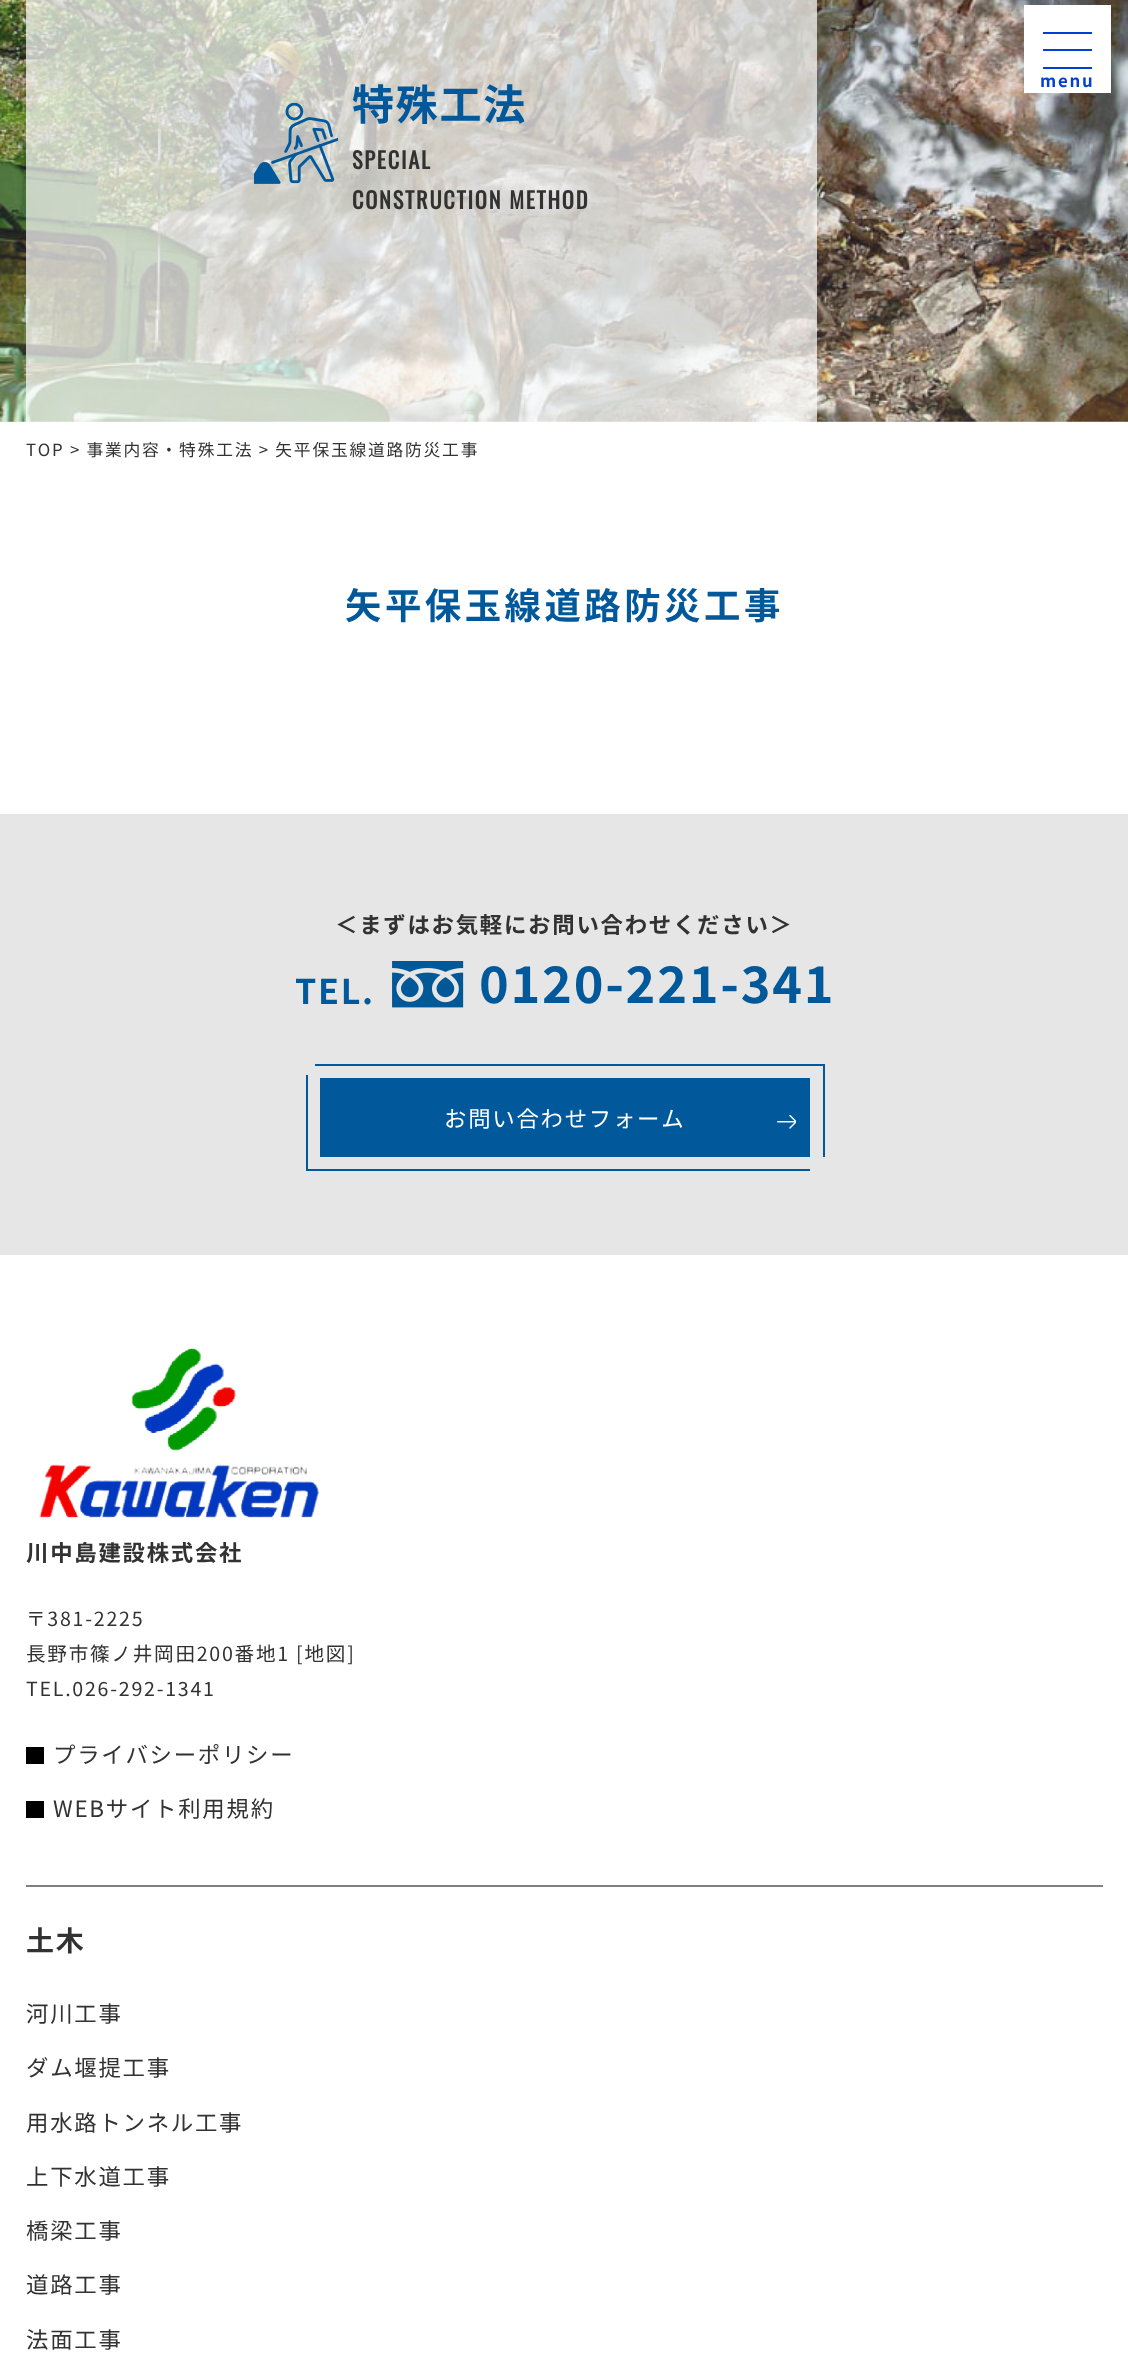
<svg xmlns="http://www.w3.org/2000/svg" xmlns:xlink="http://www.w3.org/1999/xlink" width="1128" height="2365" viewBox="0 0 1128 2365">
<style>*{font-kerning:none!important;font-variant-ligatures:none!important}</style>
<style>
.cls-1{font:bold 16.8px Noto Sans JP;letter-spacing:1.75px;fill:#0140d1}
.cls-2{font:bold 42px Noto Sans JP;letter-spacing:1.75px;fill:#01589a}
.cls-3{font:bold 22.4px Oswald;letter-spacing:1.75px;fill:#323232}
.cls-4{font:16.8px Noto Sans JP;letter-spacing:1.75px;fill:#323232}
.cls-5{font:bold 36.4px Noto Sans JP;letter-spacing:3.5px;fill:#01589a}
.cls-6{font:bold 22.4px Noto Sans JP;letter-spacing:1.75px;fill:#323232}
.cls-7{font:bold 34px Noto Sans JP;letter-spacing:1.75px;fill:#01589a}
.cls-8{font:bold 50.5px Noto Sans JP;letter-spacing:1.75px;fill:#01589a}
.cls-9{font:22.4px Noto Sans JP;letter-spacing:1.75px;fill:#ffffff}
.cls-10{font:19.6px Noto Sans JP;letter-spacing:1.75px;fill:#323232}
.cls-11{font:22.4px Noto Sans JP;letter-spacing:1.75px;fill:#323232}
.cls-12{font:bold 28px Noto Sans JP;letter-spacing:1.75px;fill:#323232}
</style>
<defs>
<linearGradient id="g1" gradientUnits="userSpaceOnUse" x1="564" y1="-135" x2="564" y2="422"><stop offset="0" stop-color="#4141aa" stop-opacity="0.1"/><stop offset="1" stop-color="#b4b4b4" stop-opacity="0.2"/></linearGradient>
</defs>
<rect width="100%" height="100%" fill="#ffffff"/>
<image xlink:href="image0.png" x="0" y="0" width="1128" height="422"/>
<rect fill="url(#g1)" x="0" y="0" width="1128" height="422"/>
<rect fill="#ffffff" x="1024" y="5" width="87" height="88"/>
<rect fill="#0140d1" x="1043" y="32" width="49" height="2"/>
<rect fill="#0140d1" x="1043" y="49" width="49" height="2"/>
<rect fill="#0140d1" x="1043" y="67" width="49" height="2"/>
<rect fill="#ffffff" fill-opacity="0.7" x="26" y="0" width="791" height="422"/>
<image xlink:href="image1.png" x="254" y="103" width="84" height="81"/>
<rect fill="#e6e6e6" x="0" y="814" width="1128" height="441"/>
<image xlink:href="image2.png" x="392" y="961" width="72" height="47"/>
<rect fill="#01589a" x="315" y="1064" width="509" height="2"/>
<rect fill="#01589a" x="306" y="1169" width="504" height="2"/>
<rect fill="#01589a" x="306" y="1075" width="2" height="96"/>
<rect fill="#01589a" x="320" y="1078" width="490" height="79"/>
<image xlink:href="image3.png" x="777" y="1115" width="19" height="14"/>
<rect fill="#01589a" x="823" y="1064" width="2" height="93"/>
<image xlink:href="image4.png" x="39" y="1348" width="280" height="170"/>
<rect fill="#000000" x="26" y="1747" width="18" height="17"/>
<rect fill="#000000" x="26" y="1801" width="18" height="17"/>
<rect fill="#808080" x="26" y="1885" width="1077" height="2"/>
<text class="cls-1" x="1040" y="87">menu</text>
<text class="cls-2" x="352" y="120">特殊工法</text>
<text class="cls-3"><tspan x="352" y="169">SPECIAL</tspan><tspan x="352" y="209">CONSTRUCTION METHOD</tspan></text>
<text class="cls-4" x="26" y="456">TOP &gt; 事業内容・特殊工法 &gt; 矢平保玉線道路防災工事</text>
<text class="cls-5" x="345" y="619">矢平保玉線道路防災工事</text>
<text class="cls-6" x="335" y="933">＜まずはお気軽にお問い合わせください＞</text>
<text class="cls-7" x="295" y="1004">TEL.</text>
<text class="cls-8" x="479" y="1003">0120-221-341</text>
<text class="cls-9" x="444" y="1127">お問い合わせフォーム</text>
<text class="cls-6" x="26" y="1561">川中島建設株式会社</text>
<text class="cls-10"><tspan x="26" y="1626">〒381-2225</tspan><tspan x="26" y="1661">長野市篠ノ井岡田200番地1 [地図]</tspan><tspan x="26" y="1696">TEL.026-292-1341</tspan></text>
<text class="cls-11" x="53" y="1763">プライバシーポリシー</text>
<text class="cls-11" x="53" y="1817">WEBサイト利用規約</text>
<text class="cls-12" x="26" y="1951">土木</text>
<text class="cls-11" x="26" y="2022">河川工事</text>
<text class="cls-11" x="26" y="2076">ダム堰提工事</text>
<text class="cls-11" x="26" y="2131">用水路トンネル工事</text>
<text class="cls-11" x="26" y="2185">上下水道工事</text>
<text class="cls-11" x="26" y="2239">橋梁工事</text>
<text class="cls-11" x="26" y="2293">道路工事</text>
<text class="cls-11" x="26" y="2348">法面工事</text>
</svg>
